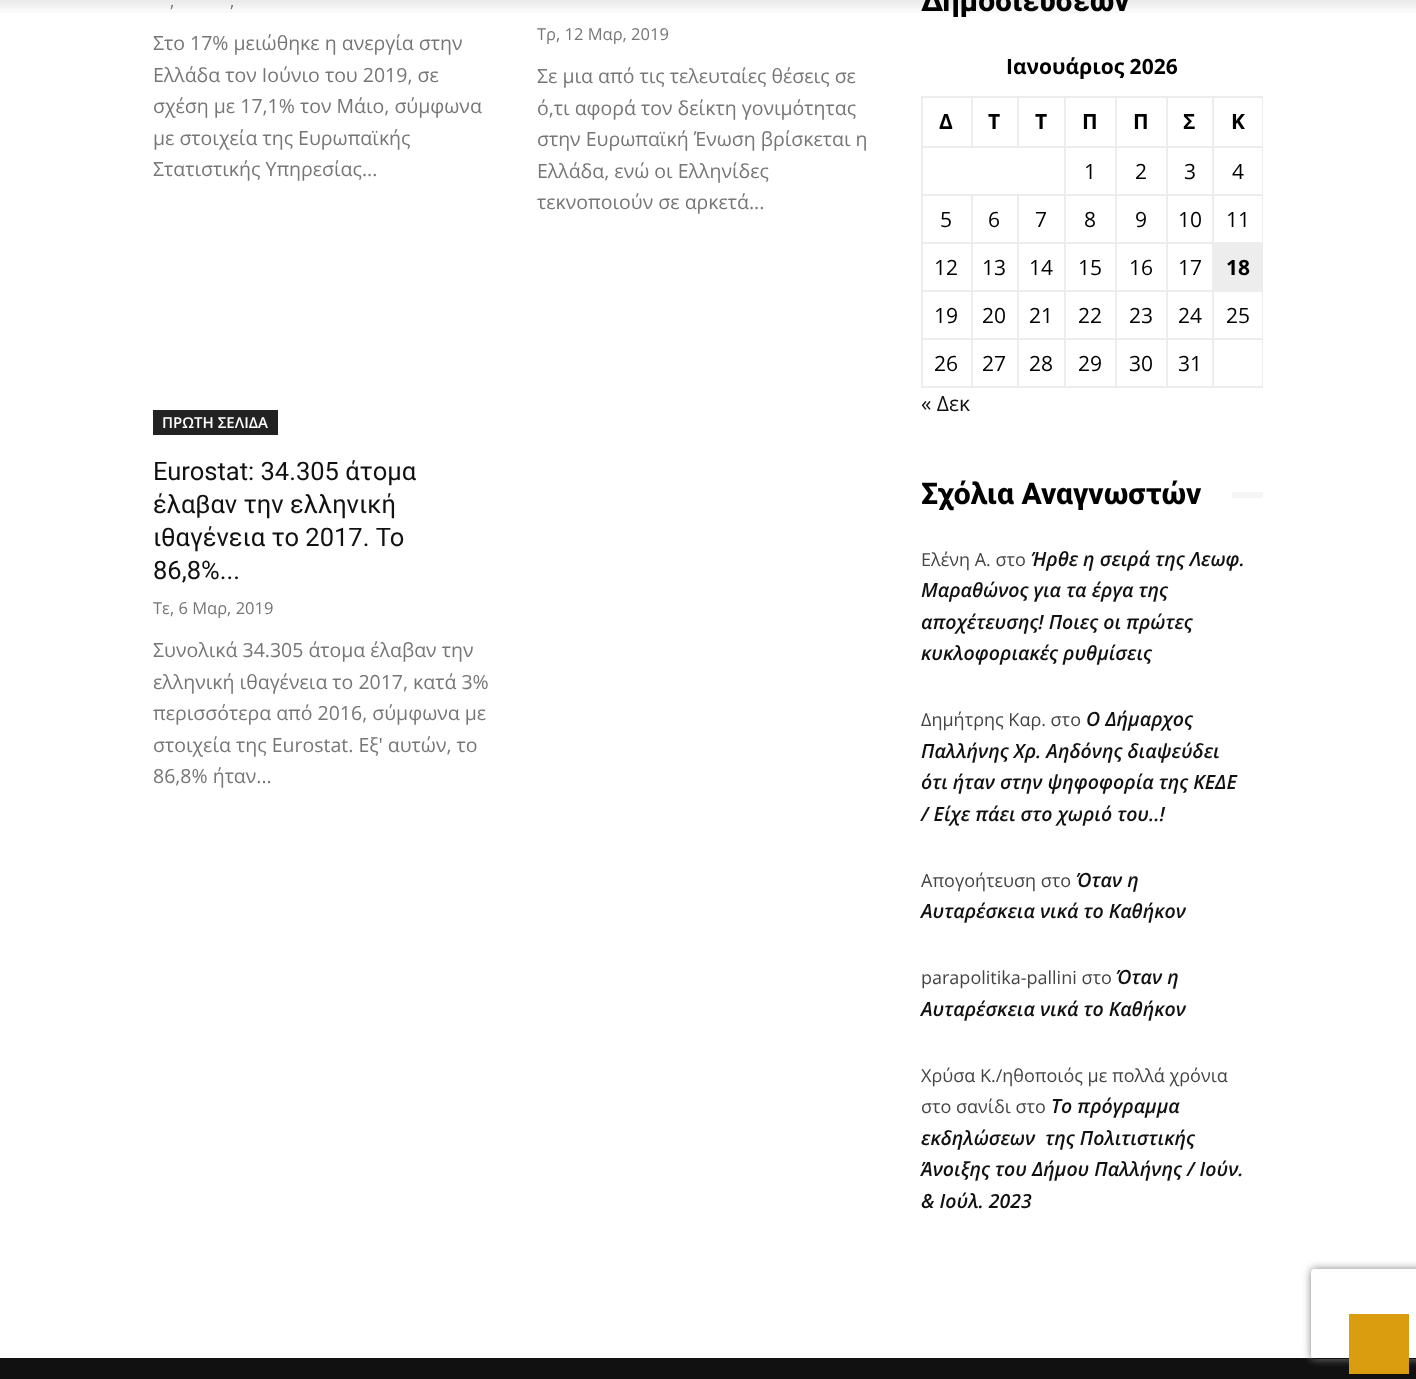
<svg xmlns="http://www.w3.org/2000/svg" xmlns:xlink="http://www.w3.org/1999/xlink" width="1416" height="1379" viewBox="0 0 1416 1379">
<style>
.cls-1{font:16.5px Open Sans;fill:#767676}
.cls-2{font:19.5px Open Sans;fill:#767676}
.cls-3{font:600 15px Open Sans;fill:#ffffff}
.cls-4{font:25.5px Roboto;fill:#111111}
.cls-5{font:800 30px Roboto;fill:#000000}
.cls-6{font:bold 21px Open Sans;fill:#000000}
.cls-7{font:21px Open Sans;fill:#000000}
.cls-8{font:21px Open Sans;fill:#111111}
.cls-9{font:18px Open Sans;fill:#444444}
.cls-10{font:italic 600 19.5px Open Sans;fill:#111111}
</style>
<defs>
<clipPath id="clip1"><path d="M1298 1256H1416V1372H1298ZM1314 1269H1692C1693.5 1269 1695 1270.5 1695 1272V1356C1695 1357.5 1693.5 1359 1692 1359H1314C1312.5 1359 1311 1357.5 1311 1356V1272C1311 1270.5 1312.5 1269 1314 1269Z" clip-rule="evenodd"/></clipPath>
</defs>
<rect width="100%" height="100%" fill="#ffffff"/>
<rect fill="#222222" x="153" y="410" width="125" height="25"/>
<rect fill="#ededed" x="1212" y="96" width="51" height="2"/>
<rect fill="#ededed" x="1212" y="146" width="51" height="2"/>
<rect fill="#ededed" x="1212" y="194" width="51" height="2"/>
<rect fill="#ededed" x="1212" y="242" width="51" height="2"/>
<rect fill="#ededed" x="1212" y="290" width="51" height="2"/>
<rect fill="#ededed" x="1212" y="338" width="51" height="2"/>
<rect fill="#ededed" x="1262" y="338" width="1" height="49"/>
<rect fill="#ededed" x="1212" y="386" width="51" height="2"/>
<rect fill="#ededed" x="1212" y="338" width="2" height="49"/>
<rect fill="#ededed" x="1166" y="338" width="48" height="2"/>
<rect fill="#ededed" x="1212" y="290" width="2" height="49"/>
<rect fill="#ededed" x="1166" y="290" width="48" height="2"/>
<rect fill="#ededed" x="1212" y="242" width="2" height="49"/>
<rect fill="#ededed" x="1166" y="242" width="48" height="2"/>
<rect fill="#ededed" x="1212" y="194" width="2" height="49"/>
<rect fill="#ededed" x="1166" y="194" width="48" height="2"/>
<rect fill="#ededed" x="1212" y="146" width="2" height="49"/>
<rect fill="#ededed" x="1166" y="146" width="48" height="2"/>
<rect fill="#ededed" x="1212" y="96" width="2" height="51"/>
<rect fill="#ededed" x="1166" y="96" width="48" height="2"/>
<rect fill="#ededed" x="1166" y="386" width="48" height="2"/>
<rect fill="#ededed" x="1166" y="338" width="2" height="49"/>
<rect fill="#ededed" x="1115" y="338" width="52" height="2"/>
<rect fill="#ededed" x="1166" y="290" width="2" height="49"/>
<rect fill="#ededed" x="1115" y="290" width="52" height="2"/>
<rect fill="#ededed" x="1166" y="242" width="2" height="49"/>
<rect fill="#ededed" x="1115" y="242" width="52" height="2"/>
<rect fill="#ededed" x="1166" y="194" width="2" height="49"/>
<rect fill="#ededed" x="1115" y="194" width="52" height="2"/>
<rect fill="#ededed" x="1166" y="146" width="2" height="49"/>
<rect fill="#ededed" x="1115" y="146" width="52" height="2"/>
<rect fill="#ededed" x="1166" y="96" width="2" height="51"/>
<rect fill="#ededed" x="1115" y="96" width="52" height="2"/>
<rect fill="#ededed" x="1115" y="386" width="52" height="2"/>
<rect fill="#ededed" x="1115" y="338" width="2" height="49"/>
<rect fill="#ededed" x="1064" y="338" width="52" height="2"/>
<rect fill="#ededed" x="1115" y="290" width="2" height="49"/>
<rect fill="#ededed" x="1064" y="290" width="52" height="2"/>
<rect fill="#ededed" x="1115" y="242" width="2" height="49"/>
<rect fill="#ededed" x="1064" y="242" width="52" height="2"/>
<rect fill="#ededed" x="1115" y="194" width="2" height="49"/>
<rect fill="#ededed" x="1064" y="194" width="52" height="2"/>
<rect fill="#ededed" x="1115" y="146" width="2" height="49"/>
<rect fill="#ededed" x="1064" y="146" width="52" height="2"/>
<rect fill="#ededed" x="1115" y="96" width="2" height="51"/>
<rect fill="#ededed" x="1064" y="96" width="52" height="2"/>
<rect fill="#ededed" x="1064" y="386" width="52" height="2"/>
<rect fill="#ededed" x="1064" y="338" width="2" height="49"/>
<rect fill="#ededed" x="1017" y="338" width="48" height="2"/>
<rect fill="#ededed" x="1064" y="290" width="2" height="49"/>
<rect fill="#ededed" x="1017" y="290" width="48" height="2"/>
<rect fill="#ededed" x="1064" y="242" width="2" height="49"/>
<rect fill="#ededed" x="1017" y="242" width="48" height="2"/>
<rect fill="#ededed" x="1064" y="194" width="2" height="49"/>
<rect fill="#ededed" x="1017" y="194" width="48" height="2"/>
<rect fill="#ededed" x="1064" y="146" width="2" height="49"/>
<rect fill="#ededed" x="921" y="146" width="144" height="2"/>
<rect fill="#ededed" x="1064" y="96" width="2" height="51"/>
<rect fill="#ededed" x="1017" y="96" width="48" height="2"/>
<rect fill="#ededed" x="1017" y="96" width="2" height="51"/>
<rect fill="#ededed" x="971" y="96" width="48" height="2"/>
<rect fill="#ededed" x="971" y="96" width="2" height="51"/>
<rect fill="#ededed" x="921" y="96" width="51" height="2"/>
<rect fill="#ededed" x="1017" y="386" width="48" height="2"/>
<rect fill="#ededed" x="1017" y="338" width="2" height="49"/>
<rect fill="#ededed" x="971" y="338" width="48" height="2"/>
<rect fill="#ededed" x="1017" y="290" width="2" height="49"/>
<rect fill="#ededed" x="971" y="290" width="48" height="2"/>
<rect fill="#ededed" x="1017" y="242" width="2" height="49"/>
<rect fill="#ededed" x="971" y="242" width="48" height="2"/>
<rect fill="#ededed" x="1017" y="194" width="2" height="49"/>
<rect fill="#ededed" x="971" y="194" width="48" height="2"/>
<rect fill="#ededed" x="971" y="386" width="48" height="2"/>
<rect fill="#ededed" x="971" y="338" width="2" height="49"/>
<rect fill="#ededed" x="921" y="338" width="51" height="2"/>
<rect fill="#ededed" x="971" y="290" width="2" height="49"/>
<rect fill="#ededed" x="921" y="290" width="51" height="2"/>
<rect fill="#ededed" x="971" y="242" width="2" height="49"/>
<rect fill="#ededed" x="921" y="242" width="51" height="2"/>
<rect fill="#ededed" x="971" y="194" width="2" height="49"/>
<rect fill="#ededed" x="921" y="194" width="51" height="2"/>
<rect fill="#ededed" x="921" y="386" width="51" height="2"/>
<rect fill="#ededed" x="921" y="338" width="2" height="49"/>
<rect fill="#ededed" x="921" y="290" width="2" height="49"/>
<rect fill="#ededed" x="921" y="242" width="2" height="49"/>
<rect fill="#ededed" x="921" y="194" width="2" height="49"/>
<rect fill="#ededed" x="921" y="146" width="2" height="49"/>
<rect fill="#ededed" x="921" y="96" width="2" height="51"/>
<rect fill="#ededed" x="1262" y="194" width="1" height="49"/>
<rect fill="#ededed" x="1262" y="146" width="1" height="49"/>
<rect fill="#ededed" x="1262" y="96" width="1" height="51"/>
<rect fill="#ededed" x="1214" y="244" width="49" height="46"/>
<rect fill="#ededed" x="1262" y="290" width="1" height="49"/>
<rect fill="#f5f5f5" x="1232" y="492" width="31" height="6"/>
<rect fill="#111111" x="0" y="1358" width="1416" height="21"/>
<g clip-path="url(#clip1)">
<rect fill="#808080" filter="blur(4px)" x="1311" y="1269" width="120" height="90" rx="3"/>
</g>
<rect fill="#da9d10" x="1349" y="1314" width="60" height="60"/>
<text class="cls-1" x="170" y="7">,</text>
<text class="cls-1" x="230" y="7">,</text>
<text class="cls-2"><tspan x="153" y="50">Στο 17% μειώθηκε η ανεργία στην</tspan><tspan x="153" y="82">Ελλάδα τον Ιούνιο του 2019, σε</tspan><tspan x="153" y="113">σχέση με 17,1% τον Μάιο, σύμφωνα</tspan><tspan x="153" y="145">με στοιχεία της Ευρωπαϊκής</tspan><tspan x="153" y="176">Στατιστικής Υπηρεσίας...</tspan></text>
<text class="cls-1" x="537" y="40">Τρ, 12 Μαρ, 2019</text>
<text class="cls-2"><tspan x="537" y="83">Σε μια από τις τελευταίες θέσεις σε</tspan><tspan x="537" y="115">ό,τι αφορά τον δείκτη γονιμότητας</tspan><tspan x="537" y="146">στην Ευρωπαϊκή Ένωση βρίσκεται η</tspan><tspan x="537" y="178">Ελλάδα, ενώ οι Ελληνίδες</tspan><tspan x="537" y="209">τεκνοποιούν σε αρκετά...</tspan></text>
<text class="cls-3" x="162" y="428">ΠΡΩΤΗ ΣΕΛΙΔΑ</text>
<text class="cls-4"><tspan x="153" y="480">Eurostat: 34.305 άτομα</tspan><tspan x="153" y="513">έλαβαν την ελληνική</tspan><tspan x="153" y="546">ιθαγένεια το 2017. Το</tspan><tspan x="153" y="579">86,8%...</tspan></text>
<text class="cls-1" x="153" y="614">Τε, 6 Μαρ, 2019</text>
<text class="cls-2"><tspan x="153" y="657">Συνολικά 34.305 άτομα έλαβαν την</tspan><tspan x="153" y="689">ελληνική ιθαγένεια το 2017, κατά 3%</tspan><tspan x="153" y="720">περισσότερα από 2016, σύμφωνα με</tspan><tspan x="153" y="752">στοιχεία της Eurostat. Εξ' αυτών, το</tspan><tspan x="153" y="783">86,8% ήταν...</tspan></text>
<text class="cls-5" x="921" y="11">Δημοσιεύσεων</text>
<image xlink:href="image0.png" x="0" y="0" width="1416" height="13"/>
<text class="cls-6" x="1006" y="74">Ιανουάριος 2026</text>
<text class="cls-6" x="939" y="129">Δ</text>
<text class="cls-6" x="988" y="129">Τ</text>
<text class="cls-6" x="1035" y="129">Τ</text>
<text class="cls-6" x="1082" y="129">Π</text>
<text class="cls-6" x="1133" y="129">Π</text>
<text class="cls-6" x="1183" y="129">Σ</text>
<text class="cls-6" x="1231" y="129">Κ</text>
<text class="cls-7" x="1084" y="179">1</text>
<text class="cls-7" x="1135" y="179">2</text>
<text class="cls-7" x="1184" y="179">3</text>
<text class="cls-7" x="1232" y="179">4</text>
<text class="cls-7" x="940" y="227">5</text>
<text class="cls-7" x="988" y="227">6</text>
<text class="cls-7" x="1035" y="227">7</text>
<text class="cls-7" x="1084" y="227">8</text>
<text class="cls-7" x="1135" y="227">9</text>
<text class="cls-7" x="1178" y="227">10</text>
<text class="cls-7" x="1226" y="227">11</text>
<text class="cls-7" x="934" y="275">12</text>
<text class="cls-7" x="982" y="275">13</text>
<text class="cls-7" x="1029" y="275">14</text>
<text class="cls-7" x="1078" y="275">15</text>
<text class="cls-7" x="1129" y="275">16</text>
<text class="cls-7" x="1178" y="275">17</text>
<text class="cls-6" x="1226" y="275">18</text>
<text class="cls-7" x="934" y="323">19</text>
<text class="cls-7" x="982" y="323">20</text>
<text class="cls-7" x="1029" y="323">21</text>
<text class="cls-7" x="1078" y="323">22</text>
<text class="cls-7" x="1129" y="323">23</text>
<text class="cls-7" x="1178" y="323">24</text>
<text class="cls-7" x="1226" y="323">25</text>
<text class="cls-7" x="934" y="371">26</text>
<text class="cls-7" x="982" y="371">27</text>
<text class="cls-7" x="1029" y="371">28</text>
<text class="cls-7" x="1078" y="371">29</text>
<text class="cls-7" x="1129" y="371">30</text>
<text class="cls-7" x="1178" y="371">31</text>
<text class="cls-8" x="921" y="411">« Δεκ</text>
<text class="cls-5" x="921" y="504">Σχόλια Αναγνωστών</text>
<text class="cls-9" x="921" y="566">Ελένη Α. στο</text>
<text class="cls-10" x="1031" y="566">Ήρθε η σειρά της Λεωφ.</text>
<text class="cls-10"><tspan x="921" y="597">Μαραθώνος για τα έργα της</tspan><tspan x="921" y="629">αποχέτευσης! Ποιες οι πρώτες</tspan><tspan x="921" y="660">κυκλοφοριακές ρυθμίσεις</tspan></text>
<text class="cls-9" x="921" y="726">Δημήτρης Καρ. στο</text>
<text class="cls-10" x="1086" y="726">Ο Δήμαρχος</text>
<text class="cls-10"><tspan x="921" y="758">Παλλήνης Χρ. Αηδόνης διαψεύδει</tspan><tspan x="921" y="789">ότι ήταν στην ψηφοφορία της ΚΕΔΕ</tspan><tspan x="921" y="821">/ Είχε πάει στο χωριό του..!</tspan></text>
<text class="cls-9" x="921" y="887">Απογοήτευση στο</text>
<text class="cls-10" x="1076" y="887">Όταν η</text>
<text class="cls-10" x="921" y="918">Αυταρέσκεια νικά το Καθήκον</text>
<text class="cls-9" x="921" y="984">parapolitika-pallini στο</text>
<text class="cls-10" x="1116" y="984">Όταν η</text>
<text class="cls-10" x="921" y="1016">Αυταρέσκεια νικά το Καθήκον</text>
<text class="cls-9"><tspan x="921" y="1082">Χρύσα Κ./ηθοποιός με πολλά χρόνια</tspan><tspan x="921" y="1113">στο σανίδι στο</tspan></text>
<text class="cls-10" x="1051" y="1113">Tο πρόγραμμα</text>
<text class="cls-10" xml:space="preserve"><tspan x="921" y="1145">εκδηλώσεων  της Πολιτιστικής</tspan><tspan x="921" y="1176">Άνοιξης του Δήμου Παλλήνης / Ιούν.</tspan><tspan x="921" y="1208">&amp; Ιούλ. 2023</tspan></text>
</svg>
